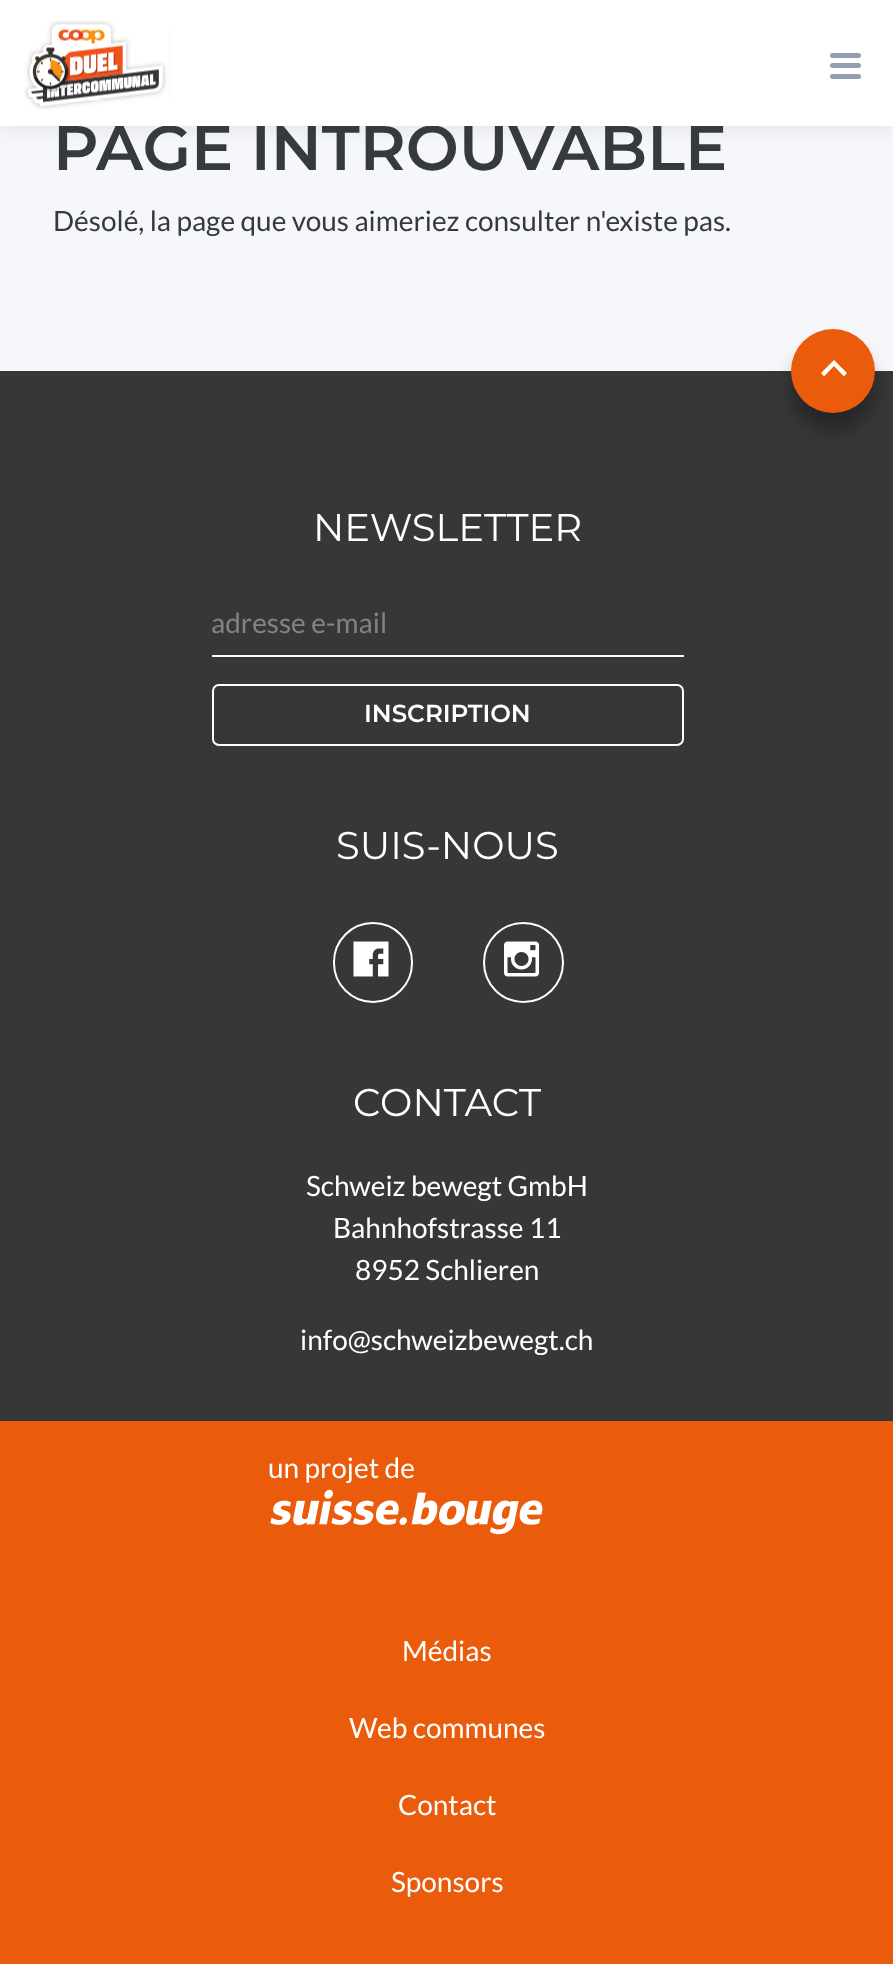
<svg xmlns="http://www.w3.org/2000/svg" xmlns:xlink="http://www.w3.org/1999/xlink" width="893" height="1964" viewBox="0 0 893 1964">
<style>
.cls-1{font:600 63px Montserrat;fill:#373a3c}
.cls-2{font:28px Lato;fill:#373a3c}
.cls-3{font:38.5px Montserrat;fill:#ffffff}
.cls-4{font:28px Lato;fill:#838383}
.cls-5{font:600 24.5px Montserrat;fill:#ffffff}
.cls-6{font:28px Lato;fill:#ffffff}
</style>
<rect width="100%" height="100%" fill="#f5f7fa"/>
<rect fill="#000000" fill-opacity="0.07" filter="blur(9px)" x="0" y="4" width="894" height="126"/>
<rect fill="#373737" x="0" y="371" width="893" height="1050"/>
<rect fill="#000000" fill-opacity="0.3" filter="blur(9px)" x="791" y="347" width="84" height="84" rx="42"/>
<circle fill="#ea5b0c" cx="833" cy="371" r="42"/>
<path fill="#ffffff" d="M834 360L847 373L844 376.5L834 366L824 376.5L821 373Z"/>
<rect fill="#ffffff" x="212" y="655" width="472" height="2"/>
<rect fill="none" stroke="#ffffff" stroke-width="2" x="213" y="685" width="470" height="60" rx="6"/>
<rect fill="none" stroke="#ffffff" stroke-width="2" x="334" y="923" width="78" height="79" rx="39"/>
<image xlink:href="image1.png" x="353" y="941" width="36" height="36"/>
<circle fill="none" stroke="#ffffff" stroke-width="2" cx="523.5" cy="962.5" r="39.5"/>
<image xlink:href="image2.png" x="504" y="941" width="36" height="36"/>
<rect fill="#ea5b0c" x="0" y="1421" width="893" height="543"/>
<image xlink:href="image3.png" x="270" y="1489" width="273" height="46"/>
<text class="cls-1" x="53" y="170">PAGE INTROUVABLE</text>
<rect fill="#ffffff" x="0" y="0" width="893" height="126"/>
<rect fill="#949eb2" x="830" y="74" width="31" height="5" rx="2.5"/>
<rect fill="#949eb2" x="830" y="63" width="31" height="5" rx="2.5"/>
<rect fill="#949eb2" x="830" y="53" width="31" height="5" rx="2.5"/>
<image xlink:href="image0.png" x="24" y="20" width="146" height="90"/>
<text class="cls-2" x="53" y="231">Désolé, la page que vous aimeriez consulter n'existe pas.</text>
<text class="cls-3" x="313" y="541">NEWSLETTER</text>
<text class="cls-4" x="211" y="633">adresse e-mail</text>
<text class="cls-5" x="364" y="722">INSCRIPTION</text>
<text class="cls-3" x="336" y="859">SUIS-NOUS</text>
<text class="cls-3" x="353" y="1116">CONTACT</text>
<text class="cls-6" x="306" y="1196">Schweiz bewegt GmbH</text>
<text class="cls-6" x="333" y="1238">Bahnhofstrasse 11</text>
<text class="cls-6" x="355" y="1280">8952 Schlieren</text>
<text class="cls-6" x="300" y="1350">info@schweizbewegt.ch</text>
<text class="cls-6" x="268" y="1478">un projet de</text>
<text class="cls-6" x="402" y="1661">Médias</text>
<text class="cls-6" x="349" y="1738">Web communes</text>
<text class="cls-6" x="398" y="1815">Contact</text>
<text class="cls-6" x="391" y="1892">Sponsors</text>
</svg>
